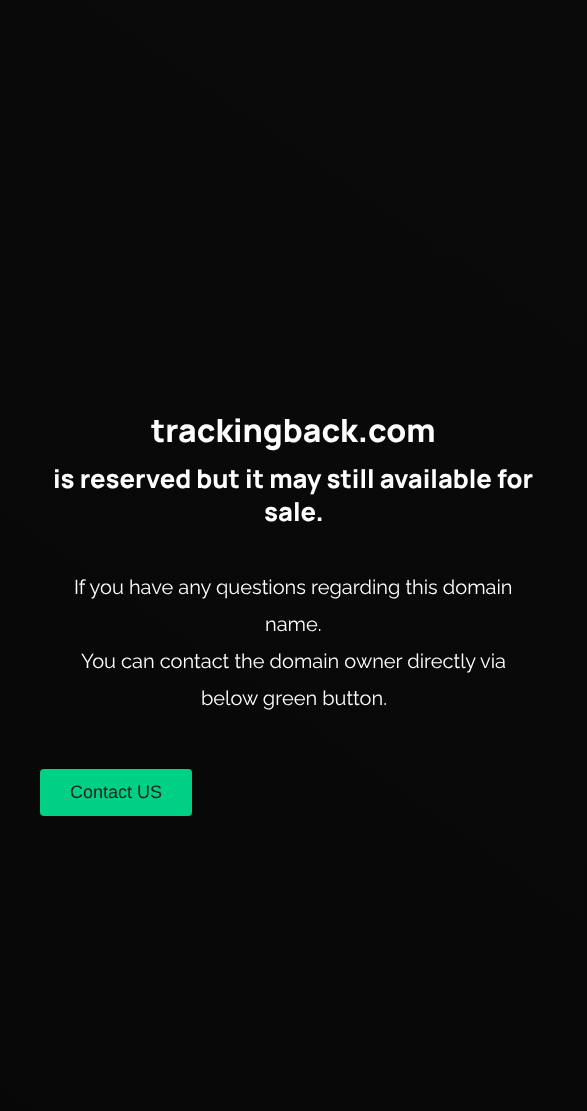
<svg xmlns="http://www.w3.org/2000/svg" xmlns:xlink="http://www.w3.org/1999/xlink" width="587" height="1111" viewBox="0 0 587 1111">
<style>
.cls-1{font:800 32px Manrope;fill:#ffffff}
.cls-2{font:800 25.6px Manrope;fill:#ffffff}
.cls-3{font:20px Raleway;fill:#ffffff}
.cls-4{font:18px Liberation Sans;fill:#222222}
</style>
<defs>
<linearGradient id="g1" gradientUnits="userSpaceOnUse" x1="-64" y1="1066" x2="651" y2="45"><stop offset="0" stop-color="#070707"/><stop offset="1" stop-color="#0a0a0a"/></linearGradient>
</defs>
<rect width="100%" height="100%" fill="#ffffff"/>
<rect fill="url(#g1)" x="0" y="0" width="587" height="1111"/>
<rect fill="#00d084" x="40" y="769" width="152" height="47" rx="4"/>
<text class="cls-1" x="151" y="442">trackingback.com</text>
<text class="cls-2" x="53" y="488">is reserved but it may still available for</text>
<text class="cls-2" x="264" y="521">sale.</text>
<text class="cls-3" x="74" y="594">If you have any questions regarding this domain</text>
<text class="cls-3" x="265" y="631">name.</text>
<text class="cls-3" x="81" y="668">You can contact the domain owner directly via</text>
<text class="cls-3" x="201" y="705">below green button.</text>
<text class="cls-4" x="70" y="798">Contact US</text>
</svg>
